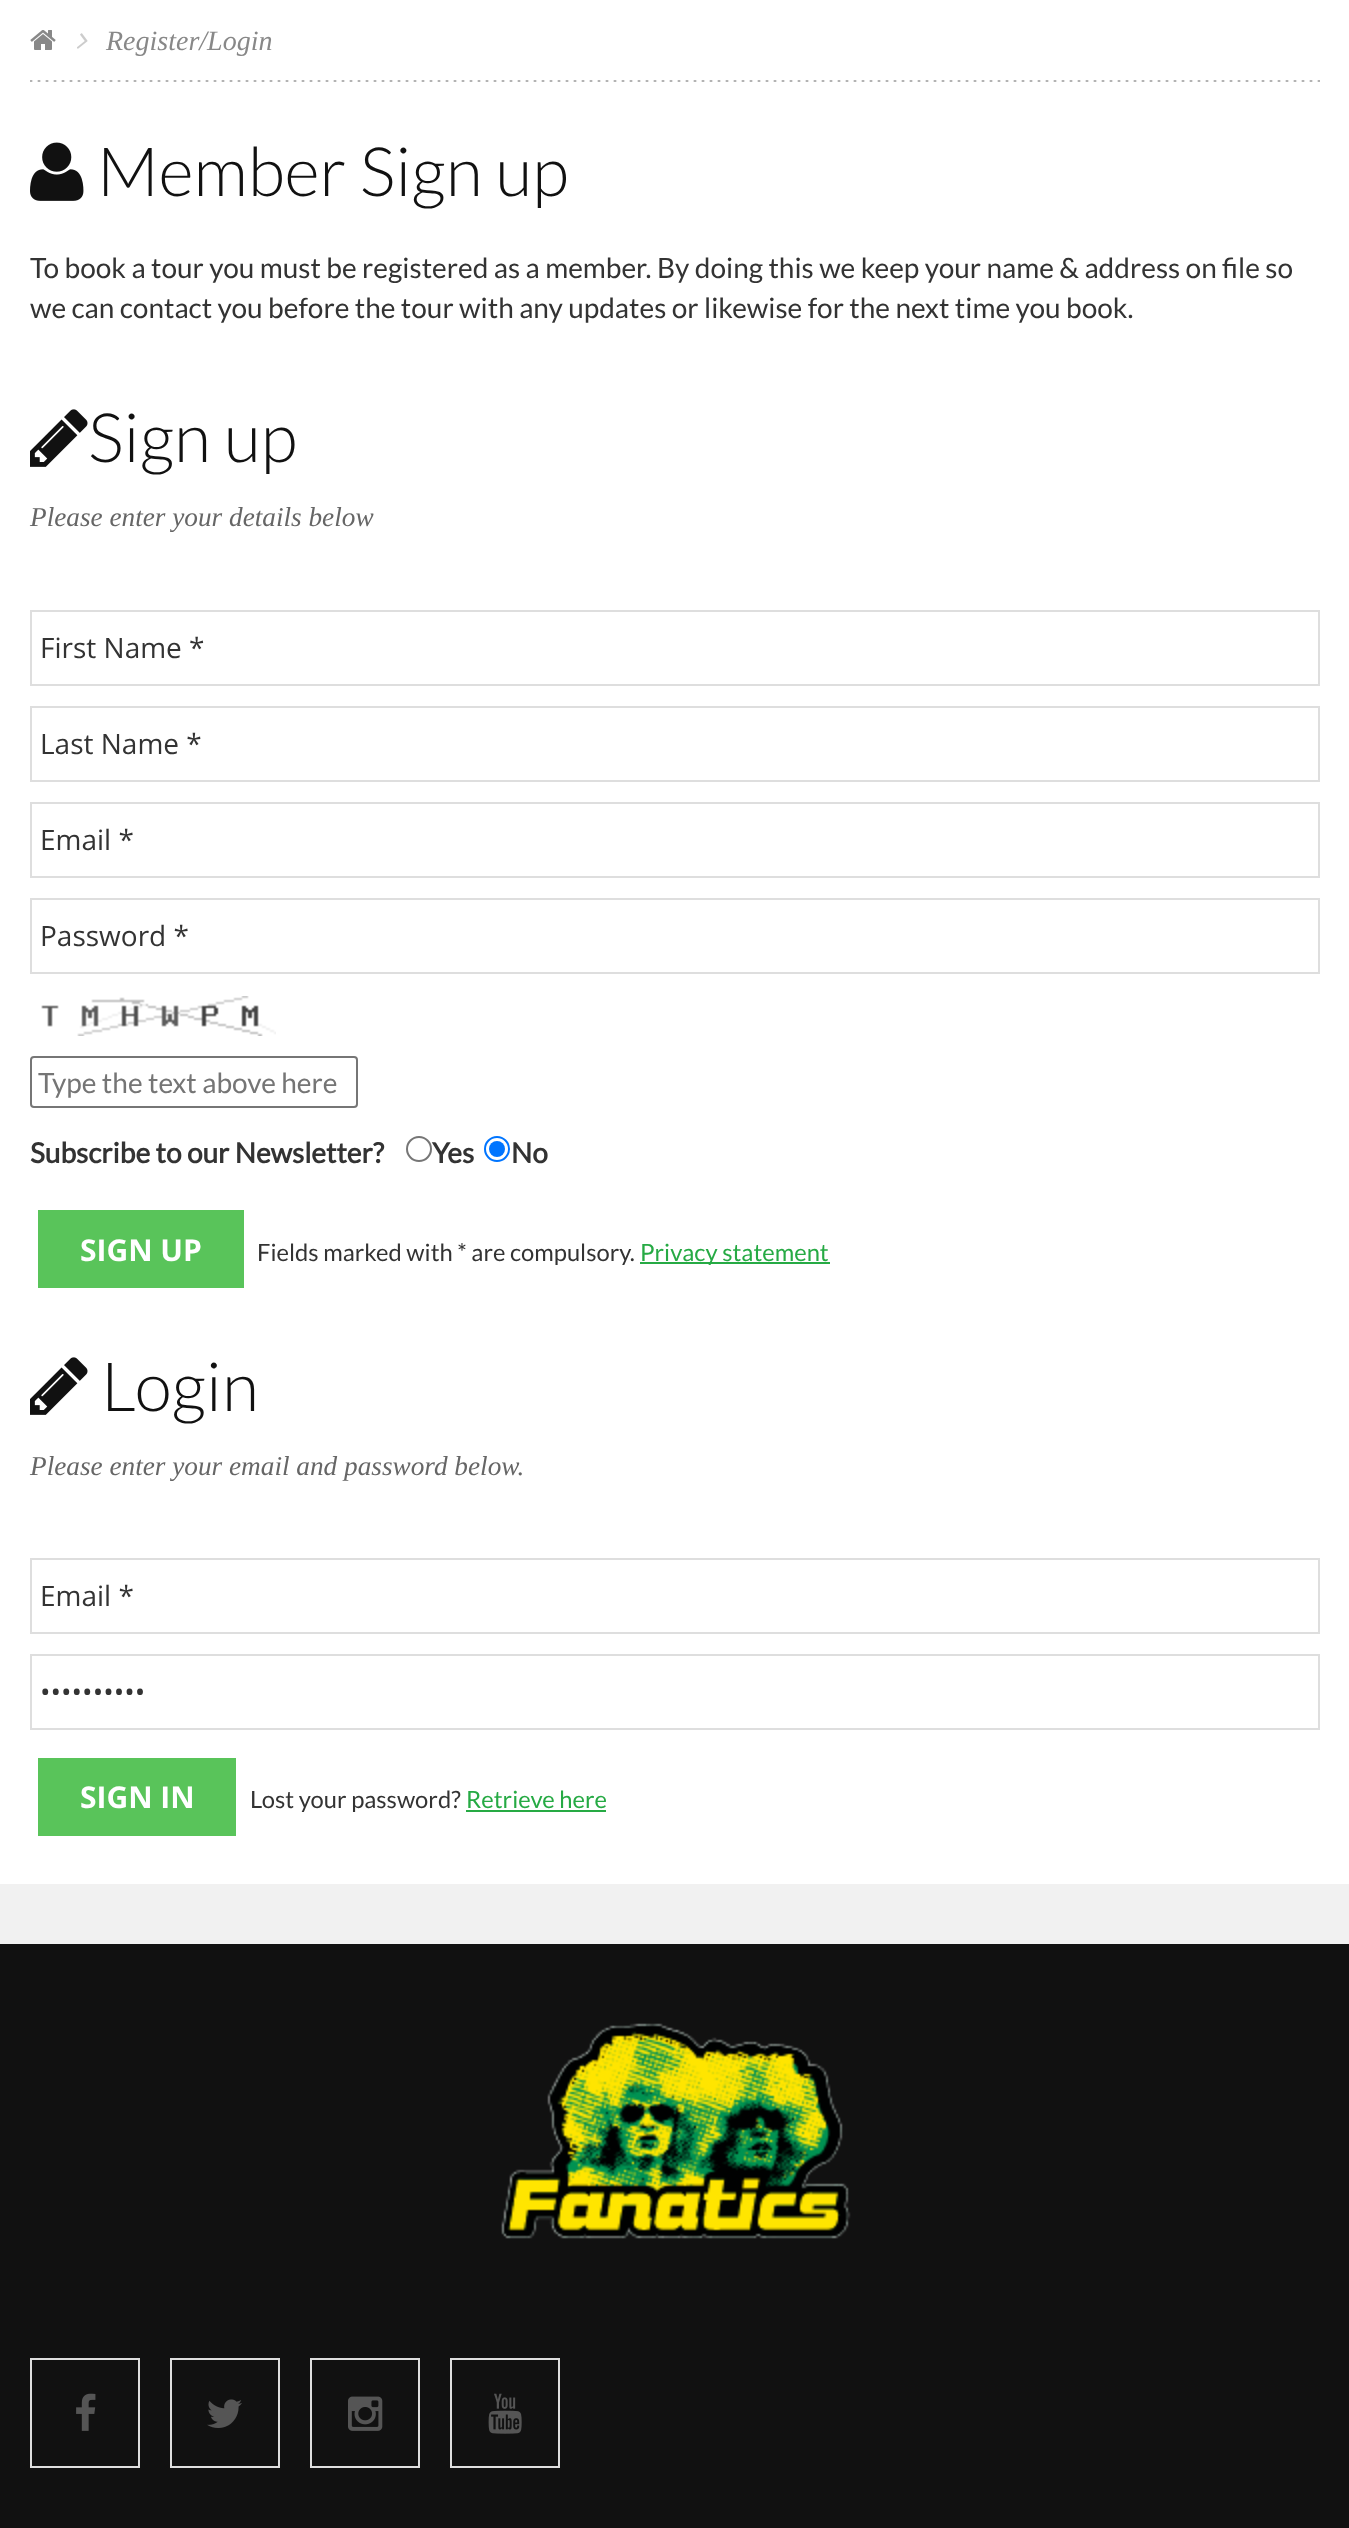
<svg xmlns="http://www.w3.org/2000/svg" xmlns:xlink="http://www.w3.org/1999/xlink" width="1349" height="2528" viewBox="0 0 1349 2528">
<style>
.cls-1{font:italic 28px Liberation Serif;fill:#888888}
.cls-2{font:300 68px Lato;fill:#111111}
.cls-3{font:28px Lato;fill:#333333}
.cls-4{font:italic 27.25px Liberation Serif;fill:#666666}
.cls-5{font:28px Open Sans;fill:#333333}
.cls-6{font:28px Lato;fill:#757575}
.cls-7{font:bold 28px Lato;fill:#333333}
.cls-8{font:bold 30px Open Sans;fill:#ffffff}
.cls-9{font:23.75px Lato;fill:#333333}
.cls-10{font:23.75px Lato;fill:#26aa44}
</style>
<rect width="100%" height="100%" fill="#f1f1f1"/>
<rect fill="#ffffff" x="0" y="0" width="1349" height="1884"/>
<image xlink:href="image0.png" x="30" y="80" width="1290" height="2"/>
<image xlink:href="image1.png" x="30" y="30" width="26" height="20"/>
<image xlink:href="image2.png" x="77" y="33" width="11" height="16"/>
<image xlink:href="image3.png" x="30" y="142" width="54" height="59"/>
<image xlink:href="image4.png" x="30" y="409" width="58" height="58"/>
<rect fill="none" stroke="#dedede" stroke-width="2" x="31" y="611" width="1288" height="74"/>
<rect fill="none" stroke="#dedede" stroke-width="2" x="31" y="707" width="1288" height="74"/>
<rect fill="none" stroke="#dedede" stroke-width="2" x="31" y="803" width="1288" height="74"/>
<rect fill="none" stroke="#dedede" stroke-width="2" x="31" y="899" width="1288" height="74"/>
<image xlink:href="image5.png" x="41" y="996" width="235" height="40"/>
<rect fill="none" stroke="#767676" stroke-width="2" x="31" y="1057" width="326" height="50" rx="3"/>
<circle fill="none" stroke="#767676" stroke-width="2" cx="419" cy="1149" r="12"/>
<circle fill="none" stroke="#0075ff" stroke-width="2" cx="497" cy="1149" r="12"/>
<circle fill="#0075ff" cx="497" cy="1149" r="8"/>
<rect fill="#59c45a" stroke="#59c45a" stroke-width="2" x="39" y="1211" width="204" height="76"/>
<rect fill="#26aa44" x="640" y="1262" width="190" height="2"/>
<image xlink:href="image4.png" x="30" y="1357" width="58" height="58"/>
<rect fill="none" stroke="#dedede" stroke-width="2" x="31" y="1559" width="1288" height="74"/>
<rect fill="none" stroke="#dedede" stroke-width="2" x="31" y="1655" width="1288" height="74"/>
<rect fill="#59c45a" stroke="#59c45a" stroke-width="2" x="39" y="1759" width="196" height="76"/>
<rect fill="#26aa44" x="466" y="1810" width="140" height="2"/>
<rect fill="#111111" x="0" y="1944" width="1349" height="584"/>
<image xlink:href="image6.png" x="501" y="2023" width="350" height="216"/>
<rect fill="none" stroke="#dedede" stroke-width="2" x="31" y="2359" width="108" height="108"/>
<image xlink:href="image7.png" x="76" y="2393" width="20" height="38"/>
<rect fill="none" stroke="#dedede" stroke-width="2" x="171" y="2359" width="108" height="108"/>
<image xlink:href="image8.png" x="207" y="2399" width="35" height="29"/>
<rect fill="none" stroke="#dedede" stroke-width="2" x="311" y="2359" width="108" height="108"/>
<image xlink:href="image9.png" x="348" y="2396" width="35" height="35"/>
<rect fill="none" stroke="#dedede" stroke-width="2" x="451" y="2359" width="108" height="108"/>
<image xlink:href="image10.png" x="488" y="2393" width="34" height="41"/>
<text class="cls-1" x="106" y="50">Register/Login</text>
<text class="cls-2" x="97" y="196">Member Sign up</text>
<text class="cls-3"><tspan x="30" y="278">To book a tour you must be registered as a member. By doing this we keep your name &amp; address on file so</tspan><tspan x="30" y="318">we can contact you before the tour with any updates or likewise for the next time you book.</tspan></text>
<text class="cls-2" x="88" y="462">Sign up</text>
<text class="cls-4" x="30" y="526">Please enter your details below</text>
<text class="cls-5" x="40" y="658">First Name *</text>
<text class="cls-5" x="40" y="754">Last Name *</text>
<text class="cls-5" x="40" y="850">Email *</text>
<text class="cls-5" x="40" y="946">Password *</text>
<text class="cls-6" x="38" y="1093">Type the text above here</text>
<text class="cls-7" x="30" y="1163">Subscribe to our Newsletter?</text>
<text class="cls-7" x="432" y="1163">Yes</text>
<text class="cls-7" x="511" y="1163">No</text>
<text class="cls-8" x="80" y="1261">SIGN UP</text>
<text class="cls-9" x="257" y="1261">Fields marked with * are compulsory.</text>
<text class="cls-10" x="640" y="1261">Privacy statement</text>
<text class="cls-2" x="101" y="1411">Login</text>
<text class="cls-4" x="30" y="1475">Please enter your email and password below.</text>
<text class="cls-5" x="40" y="1606">Email *</text>
<text class="cls-5" x="40" y="1702">••••••••••</text>
<text class="cls-8" x="80" y="1808">SIGN IN</text>
<text class="cls-9" x="250" y="1808">Lost your password?</text>
<text class="cls-10" x="466" y="1808">Retrieve here</text>
</svg>
